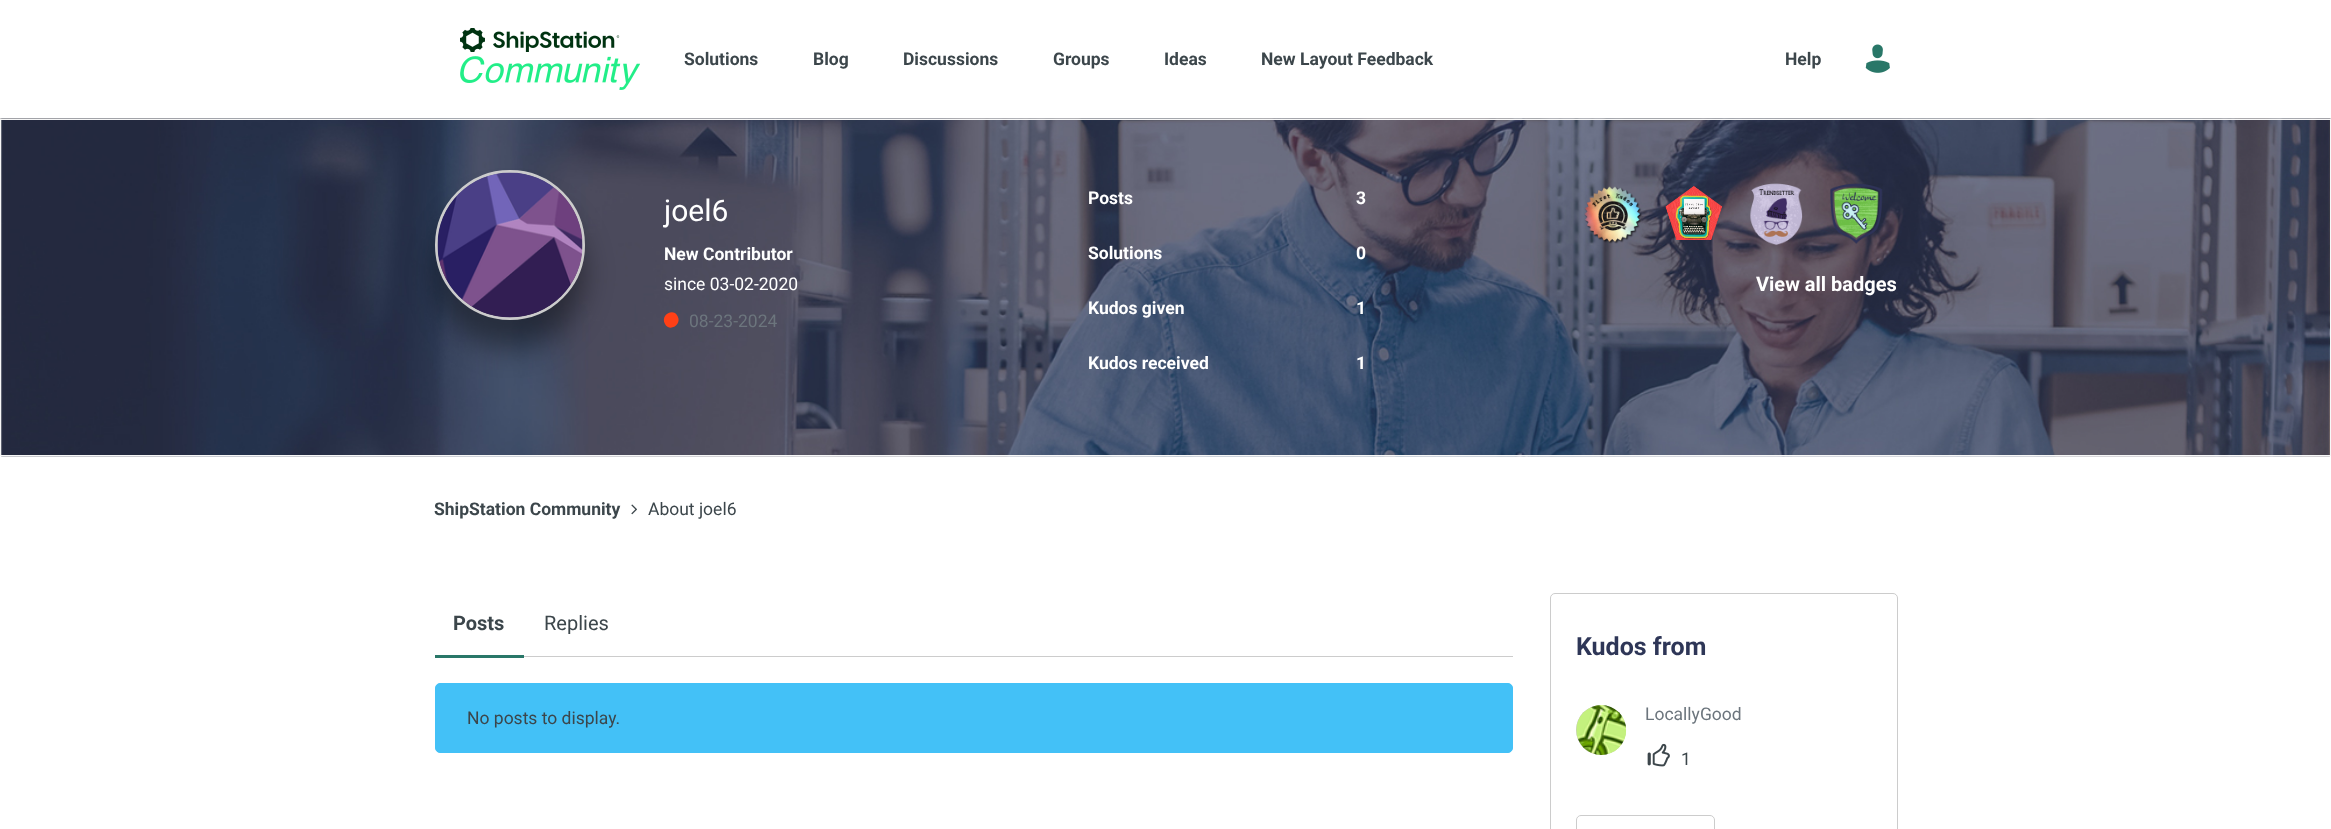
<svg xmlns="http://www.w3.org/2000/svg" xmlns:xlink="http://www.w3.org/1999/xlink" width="2331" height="829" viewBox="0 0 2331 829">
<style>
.cls-1{font:bold 17.5px Roboto;fill:#3c464b}
.cls-2{font:30px Roboto;fill:#ffffff}
.cls-3{font:bold 17.5px Roboto;fill:#ffffff}
.cls-4{font:17.5px Roboto;fill:#ffffff}
.cls-5{font:17.5px Roboto;fill:#6c757d}
.cls-6{font:bold 20px Roboto;fill:#ffffff}
.cls-7{font:17.5px Roboto;fill:#3c464b}
.cls-8{font:bold 20px Roboto;fill:#3c464b}
.cls-9{font:20px Roboto;fill:#3c464b}
.cls-10{font:bold 25px Roboto;fill:#2e3657}
</style>
<rect width="100%" height="100%" fill="#ffffff"/>
<rect fill="#000000" fill-opacity="0.25" filter="blur(2.5px)" x="1" y="4" width="2329" height="115"/>
<rect fill="#ffffff" x="0" y="0" width="2331" height="118"/>
<image xlink:href="image0.png" x="460" y="28" width="180" height="62"/>
<image xlink:href="image1.png" x="1865" y="44" width="25" height="29"/>
<rect fill="#cccccc" x="0" y="118" width="2331" height="1"/>
<image xlink:href="image2.png" x="1" y="118" width="2329" height="339"/>
<rect fill="none" stroke="#f7f7f7" x="0.5" y="119.5" width="2330" height="336"/>
<rect fill="#000000" fill-opacity="0.4" filter="blur(14px)" x="435" y="198" width="150" height="150" rx="75"/>
<circle fill="none" stroke="#cccccc" stroke-width="3" cx="510" cy="245" r="73.5"/>
<image xlink:href="image3.png" x="437" y="172" width="146" height="146"/>
<path fill="#ff4016" d="M677.5 316C682.5 324.5 669.5 332.5 665 324C660 315.5 673 307.5 677.5 316Z"/>
<image xlink:href="image4.png" x="1584" y="186" width="58" height="58"/>
<image xlink:href="image5.png" x="1665" y="185" width="58" height="55"/>
<image xlink:href="image6.png" x="1750" y="183" width="53" height="62"/>
<image xlink:href="image7.png" x="1830" y="183" width="53" height="61"/>
<image xlink:href="image8.png" x="631" y="504" width="6" height="11"/>
<rect fill="#cccccc" x="524" y="656" width="989" height="1"/>
<rect fill="#297768" x="435" y="655" width="89" height="3"/>
<rect fill="#43c1f7" stroke="#43c1f7" x="435.5" y="683.5" width="1077" height="69" rx="4.5"/>
<rect fill="none" stroke="#cccccc" x="1550.5" y="593.5" width="347" height="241" rx="4.5"/>
<rect fill="#c4c4c4" filter="blur(0.5px)" x="1576" y="705" width="50" height="50" rx="25"/>
<image xlink:href="image9.png" x="1576" y="705" width="51" height="50"/>
<image xlink:href="image10.png" x="1647" y="743" width="23" height="24"/>
<rect fill="none" stroke="#cccccc" x="1576.5" y="815.5" width="138" height="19" rx="4.5"/>
<text class="cls-1" x="684" y="65">Solutions</text>
<text class="cls-1" x="813" y="65">Blog</text>
<text class="cls-1" x="903" y="65">Discussions</text>
<text class="cls-1" x="1053" y="65">Groups</text>
<text class="cls-1" x="1164" y="65">Ideas</text>
<text class="cls-1" x="1261" y="65">New Layout Feedback</text>
<text class="cls-1" x="1785" y="65">Help</text>
<text class="cls-2" x="664" y="221">joel6</text>
<text class="cls-3" x="664" y="260">New Contributor</text>
<text class="cls-4" x="664" y="290">since 03-02-2020</text>
<text class="cls-5" x="689" y="327">08-23-2024</text>
<text class="cls-3" x="1088" y="204">Posts</text>
<text class="cls-3" x="1356" y="204">3</text>
<text class="cls-3" x="1088" y="259">Solutions</text>
<text class="cls-3" x="1356" y="259">0</text>
<text class="cls-3" x="1088" y="314">Kudos given</text>
<text class="cls-3" x="1356" y="314">1</text>
<text class="cls-3" x="1088" y="369">Kudos received</text>
<text class="cls-3" x="1356" y="369">1</text>
<text class="cls-6" x="1756" y="291">View all badges</text>
<text class="cls-1" x="434" y="515">ShipStation Community</text>
<text class="cls-7" x="648" y="515">About joel6</text>
<text class="cls-8" x="453" y="630">Posts</text>
<text class="cls-9" x="544" y="630">Replies</text>
<text class="cls-7" x="467" y="724">No posts to display.</text>
<text class="cls-10" x="1576" y="655">Kudos from</text>
<text class="cls-5" x="1645" y="720">LocallyGood</text>
<text class="cls-7" x="1681" y="765">1</text>
</svg>
